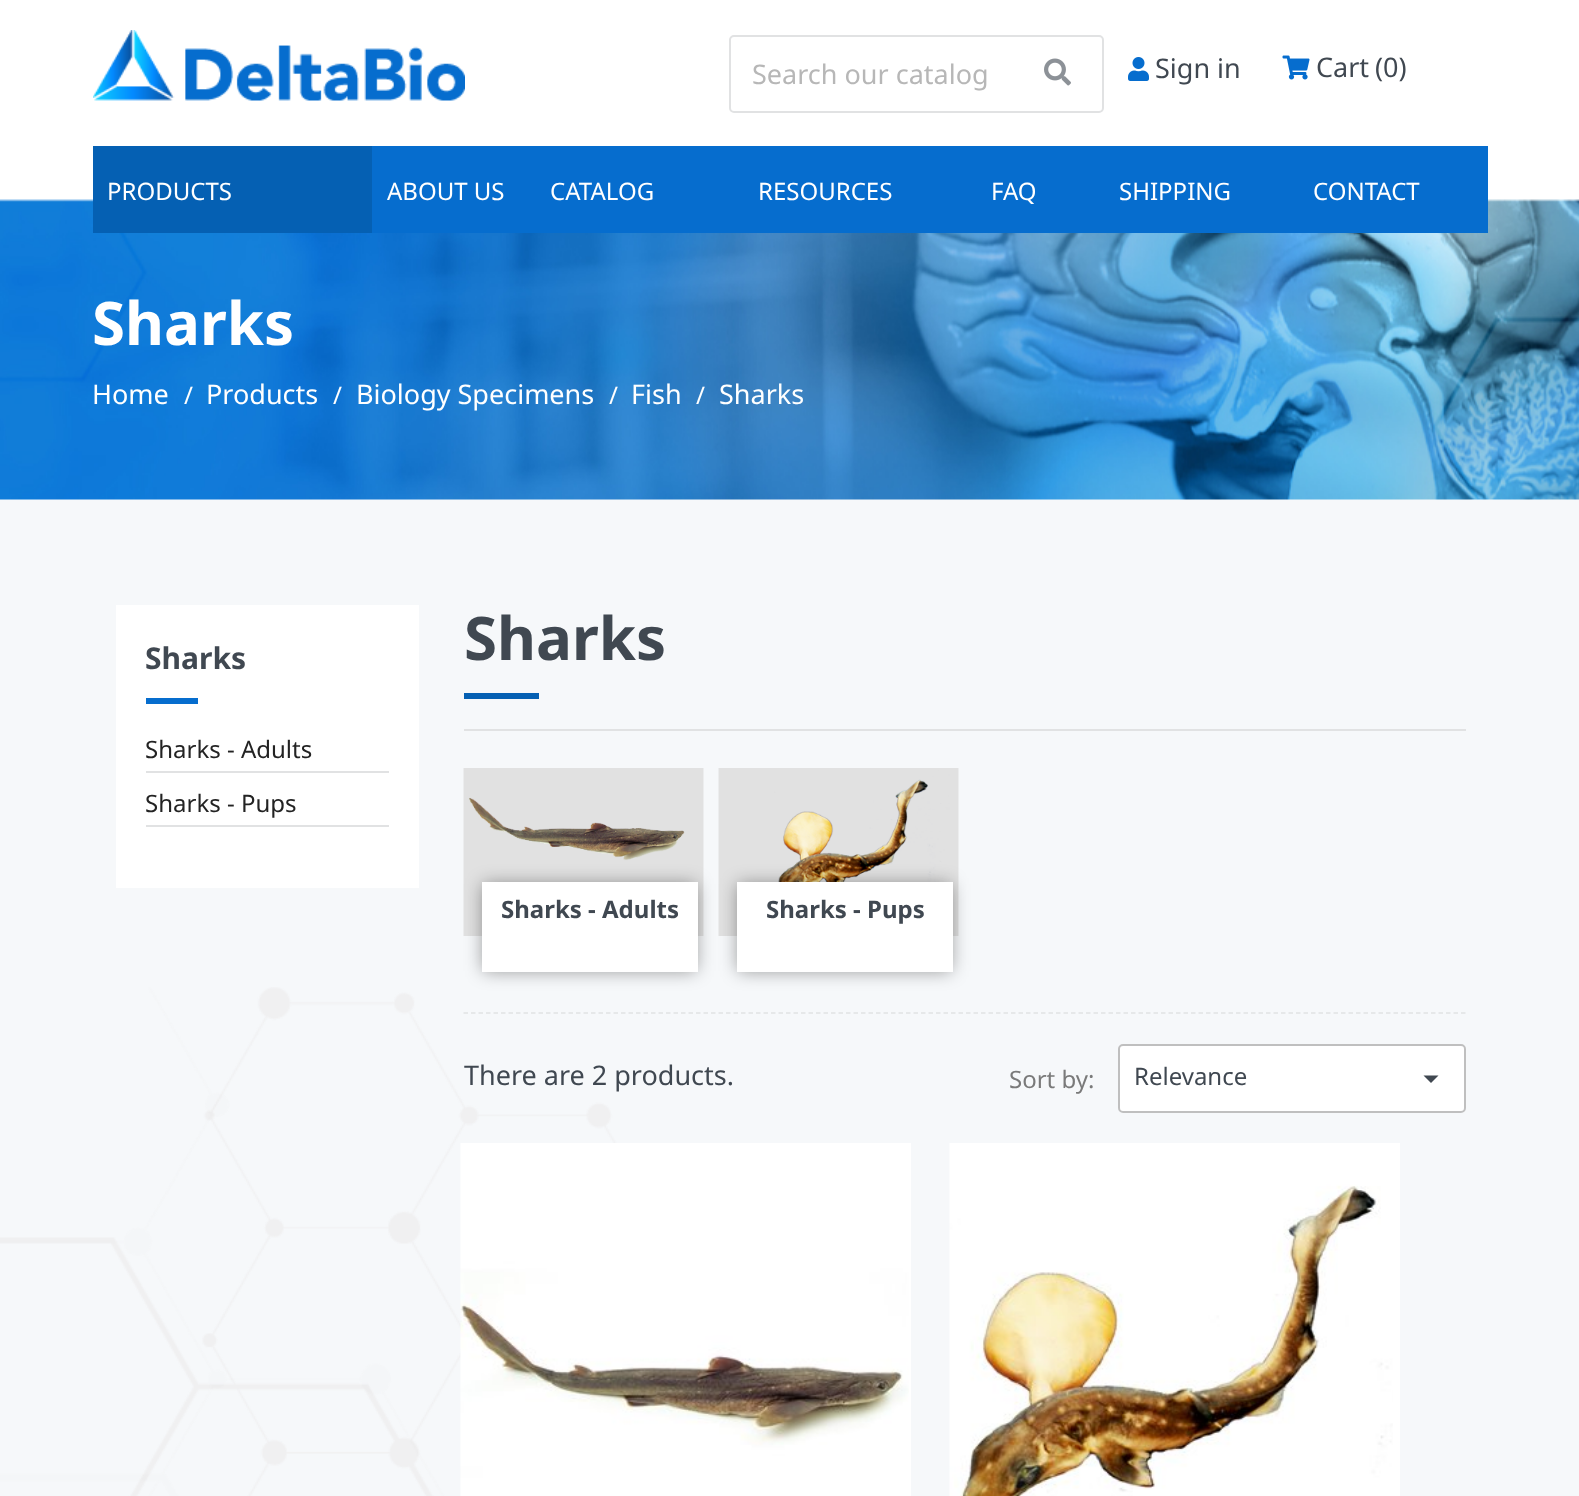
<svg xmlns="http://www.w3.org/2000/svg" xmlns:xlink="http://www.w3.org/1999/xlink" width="1579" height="1496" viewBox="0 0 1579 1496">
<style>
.cls-1{font:27px Noto Sans;fill:#b7b7b7}
.cls-2{font:27px Noto Sans;fill:#404851}
.cls-3{font:24px Noto Sans;fill:#ffffff}
.cls-4{font:bold 60px Noto Sans;fill:#ffffff}
.cls-5{font:27px Noto Sans;fill:#ffffff}
.cls-6{font:bold 30px Noto Sans;fill:#404851}
.cls-7{font:24px Noto Sans;fill:#232323}
.cls-8{font:bold 60px Noto Sans;fill:#404851}
.cls-9{font:bold 24px Noto Sans;fill:#404851}
.cls-10{font:24px Noto Sans;fill:#7a7a7a}
.cls-11{font:24px Noto Sans;fill:#404851}
</style>
<rect width="100%" height="100%" fill="#ffffff"/>
<image xlink:href="image0.png" x="93" y="30" width="372" height="71"/>
<rect fill="none" stroke="#e1e2e3" stroke-width="2" x="730" y="36" width="373" height="76" rx="4"/>
<image xlink:href="image1.png" x="1044" y="58" width="27" height="28"/>
<image xlink:href="image2.png" x="1128" y="57" width="21" height="24"/>
<image xlink:href="image3.png" x="1282" y="55" width="28" height="25"/>
<rect fill="#f6f8fa" x="0" y="499" width="1579" height="997"/>
<image xlink:href="image5.png" x="0" y="199" width="1579" height="301"/>
<rect fill="#066dce" x="372" y="146" width="1116" height="87"/>
<rect fill="#0560b3" x="93" y="146" width="279" height="87"/>
<image xlink:href="image4.png" x="0" y="987" width="617" height="509"/>
<rect fill="#ffffff" x="116" y="605" width="303" height="283"/>
<rect fill="#066dce" x="146" y="698" width="52" height="6"/>
<rect fill="#e1e2e3" x="146" y="771" width="243" height="2"/>
<rect fill="#e1e2e3" x="146" y="825" width="243" height="2"/>
<rect fill="#e1e2e3" x="464" y="729" width="1002" height="2"/>
<rect fill="#0560b3" x="464" y="693" width="75" height="6"/>
<image xlink:href="image6.png" x="463" y="768" width="241" height="168"/>
<rect fill="#000000" fill-opacity="0.4" filter="blur(9px)" x="483" y="884" width="213" height="87"/>
<rect fill="#ffffff" x="482" y="882" width="216" height="90"/>
<image xlink:href="image7.png" x="718" y="768" width="241" height="168"/>
<rect fill="#000000" fill-opacity="0.4" filter="blur(9px)" x="738" y="884" width="213" height="87"/>
<rect fill="#ffffff" x="737" y="882" width="216" height="90"/>
<path fill="none" stroke="#e1e2e3" stroke-width="1.5" stroke-dasharray="4.5 3" d="M463.5 1013H1465.5"/>
<rect fill="#ffffff" x="1118" y="1044" width="348" height="69" rx="5"/>
<rect fill="none" stroke="#000000" stroke-opacity="0.25" stroke-width="2" x="1119" y="1045" width="346" height="67" rx="4"/>
<path fill="#404851" d="M1423.5 1075.5H1438.5L1431 1083Z"/>
<rect fill="#ffffff" x="909" y="1143" width="2" height="353"/>
<image xlink:href="image8.png" x="460" y="1143" width="449" height="353"/>
<rect fill="#ffffff" x="1393" y="1143" width="7" height="353"/>
<image xlink:href="image9.png" x="949" y="1143" width="444" height="353"/>
<text class="cls-1" x="752" y="84">Search our catalog</text>
<text class="cls-2" x="1155" y="78">Sign in</text>
<text class="cls-2" x="1316" y="77">Cart</text>
<text class="cls-2" x="1375" y="77">(0)</text>
<text class="cls-3" x="107" y="200">PRODUCTS</text>
<text class="cls-3" x="387" y="200">ABOUT US</text>
<text class="cls-3" x="550" y="200">CATALOG</text>
<text class="cls-3" x="758" y="200">RESOURCES</text>
<text class="cls-3" x="991" y="200">FAQ</text>
<text class="cls-3" x="1119" y="200">SHIPPING</text>
<text class="cls-3" x="1313" y="200">CONTACT</text>
<text class="cls-4" x="92" y="345">Sharks</text>
<text class="cls-5" x="92" y="404">Home</text>
<text class="cls-3" x="184" y="404">/</text>
<text class="cls-5" x="206" y="404">Products</text>
<text class="cls-3" x="333" y="404">/</text>
<text class="cls-5" x="356" y="404">Biology Specimens</text>
<text class="cls-3" x="609" y="404">/</text>
<text class="cls-5" x="631" y="404">Fish</text>
<text class="cls-3" x="696" y="404">/</text>
<text class="cls-5" x="719" y="404">Sharks</text>
<text class="cls-6" x="145" y="669">Sharks</text>
<text class="cls-7" x="145" y="758">Sharks - Adults</text>
<text class="cls-7" x="145" y="812">Sharks - Pups</text>
<text class="cls-8" x="464" y="660">Sharks</text>
<text class="cls-9" x="501" y="918">Sharks - Adults</text>
<text class="cls-9" x="766" y="918">Sharks - Pups</text>
<text class="cls-2" x="464" y="1085">There are 2 products.</text>
<text class="cls-10" x="1009" y="1088">Sort by:</text>
<text class="cls-11" x="1134" y="1085">Relevance</text>
</svg>
